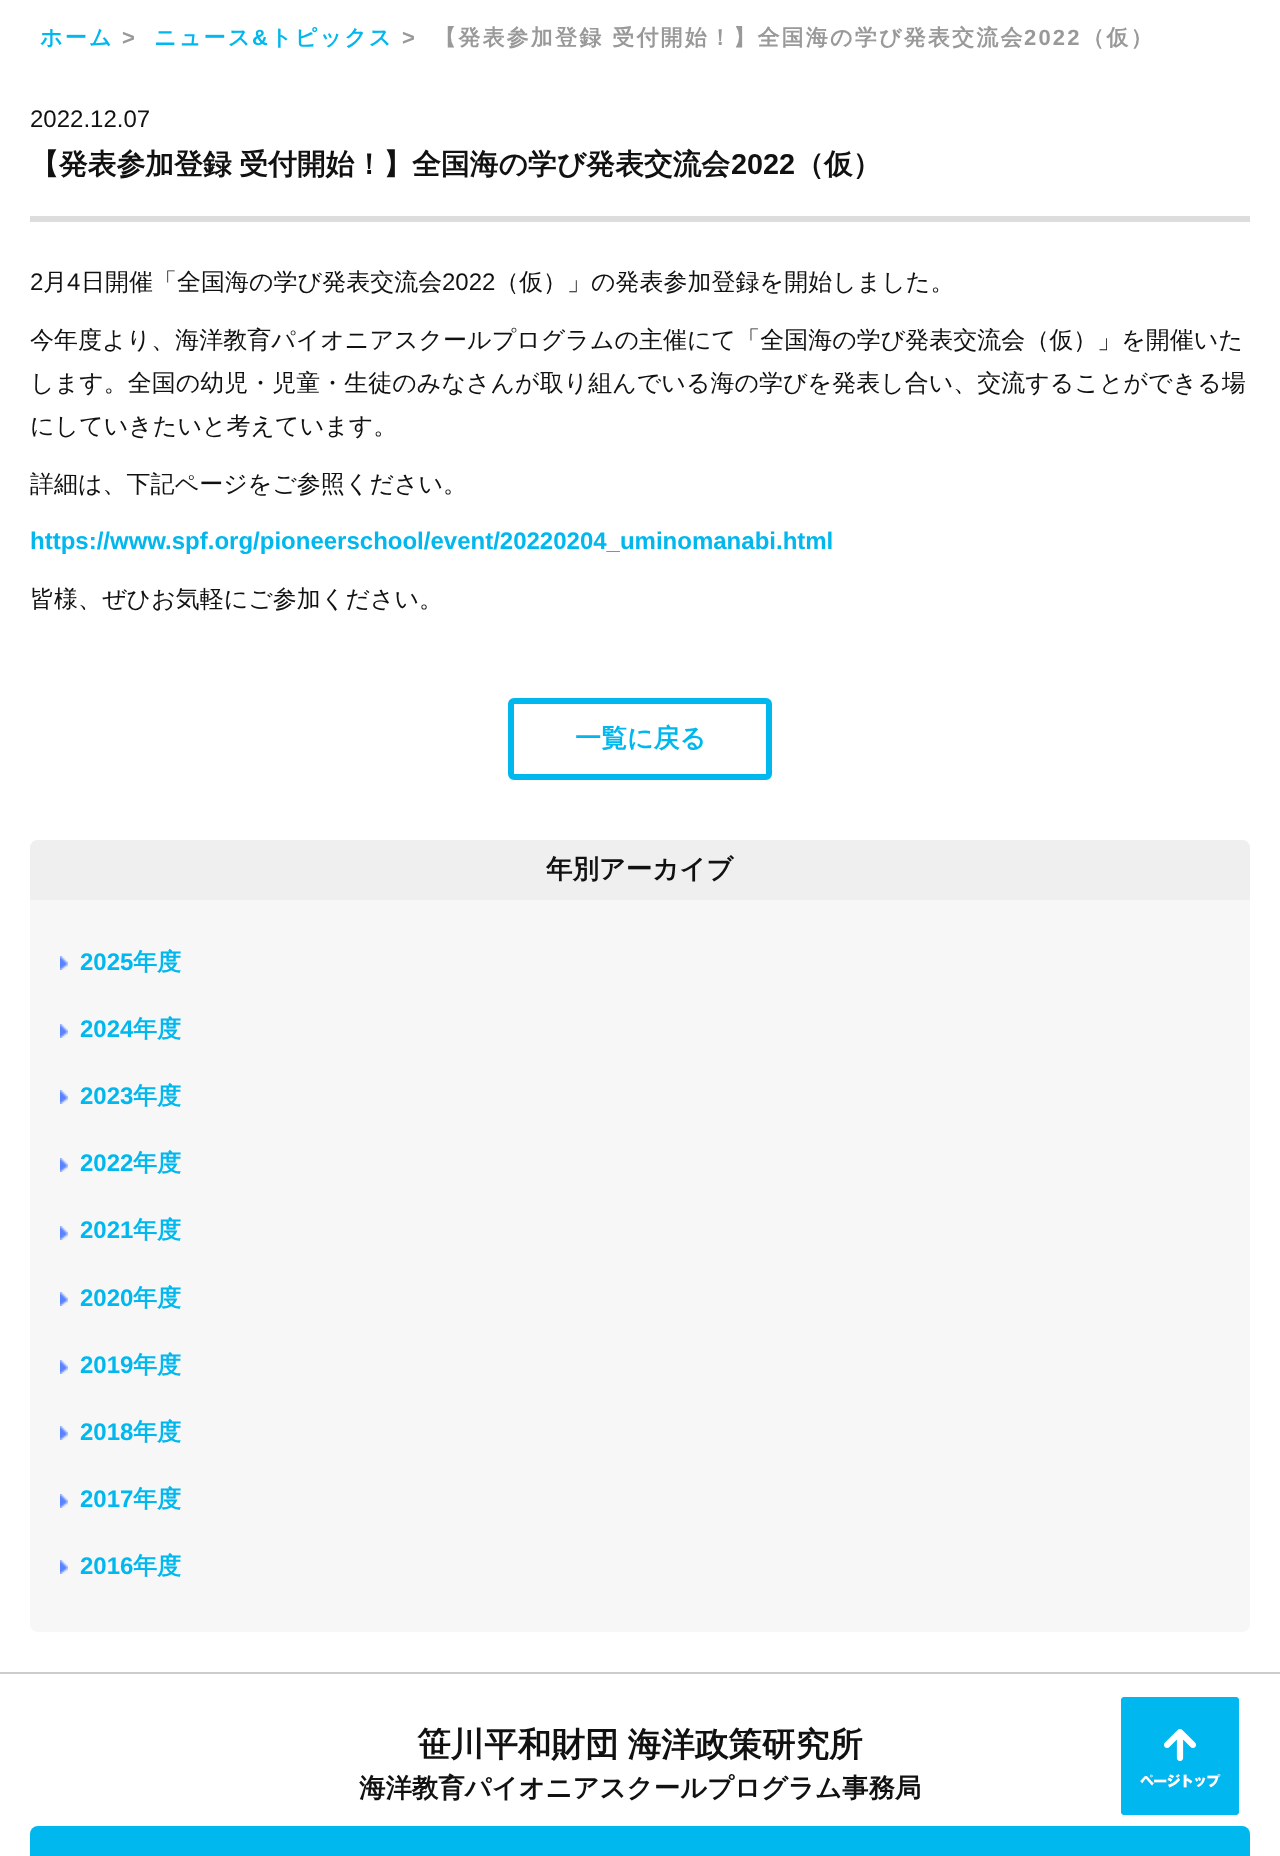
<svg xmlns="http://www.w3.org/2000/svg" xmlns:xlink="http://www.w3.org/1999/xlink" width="1280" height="1856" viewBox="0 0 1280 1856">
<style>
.cls-1{font:bold 22px WenQuanYi Zen Hei;letter-spacing:2.2px;fill:#00b7ee}
.cls-2{font:bold 22px Liberation Sans;letter-spacing:2.2px;fill:#999999}
.cls-3{font:bold 22px Liberation Sans;letter-spacing:2.2px;fill:#00b7ee}
.cls-4{font:bold 22px WenQuanYi Zen Hei;letter-spacing:2.2px;fill:#999999}
.cls-5{font:24px Liberation Sans;fill:#111111}
.cls-6{font:bold 28.8px WenQuanYi Zen Hei;fill:#111111}
.cls-7{font:bold 28.8px Liberation Sans;fill:#111111}
.cls-8{font:500 24px WenQuanYi Zen Hei;fill:#111111}
.cls-9{font:bold 24px Liberation Sans;fill:#00b7ee}
.cls-10{font:bold 26px WenQuanYi Zen Hei;fill:#00b7ee}
.cls-11{font:bold 26.4px WenQuanYi Zen Hei;fill:#111111}
.cls-12{font:bold 24px WenQuanYi Zen Hei;fill:#00b7ee}
.cls-13{font:bold 33.6px WenQuanYi Zen Hei;fill:#111111}
</style>
<rect width="100%" height="100%" fill="#ffffff"/>
<rect fill="#dddddd" x="30" y="216" width="1220" height="6"/>
<rect fill="none" stroke="#00b7ee" stroke-width="6" x="511" y="701" width="258" height="76" rx="3"/>
<path fill="#efefef" d="M38 840H1242C1246.5 840 1250 843.5 1250 848V900H30V848C30 843.5 33.5 840 38 840Z"/>
<path fill="#f7f7f7" d="M30 900H1250V1624C1250 1628.5 1246.5 1632 1242 1632H38C33.5 1632 30 1628.5 30 1624Z"/>
<image xlink:href="image0.png" x="60" y="956" width="8" height="14"/>
<image xlink:href="image0.png" x="60" y="1024" width="8" height="14"/>
<image xlink:href="image0.png" x="60" y="1090" width="8" height="14"/>
<image xlink:href="image0.png" x="60" y="1158" width="8" height="14"/>
<image xlink:href="image0.png" x="60" y="1226" width="8" height="14"/>
<image xlink:href="image0.png" x="60" y="1292" width="8" height="14"/>
<image xlink:href="image0.png" x="60" y="1360" width="8" height="14"/>
<image xlink:href="image0.png" x="60" y="1426" width="8" height="14"/>
<image xlink:href="image0.png" x="60" y="1494" width="8" height="14"/>
<image xlink:href="image0.png" x="60" y="1560" width="8" height="14"/>
<rect fill="#cccccc" x="0" y="1672" width="1280" height="2"/>
<rect fill="#00b7ee" x="30" y="1826" width="1220" height="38" rx="8"/>
<image xlink:href="image1.png" x="1121" y="1697" width="118" height="118"/>
<text class="cls-1" x="40" y="45">ホーム</text>
<text class="cls-2" x="122" y="45">&gt;</text>
<text class="cls-1" x="154" y="45">ニュース</text>
<text class="cls-3" x="252" y="45">&amp;</text>
<text class="cls-1" x="270" y="45">トピックス</text>
<text class="cls-2" x="402" y="45">&gt;</text>
<text class="cls-4" x="434" y="45">【発表参加登録 受付開始！】全国海の学び発表交流会</text>
<text class="cls-2" x="1024" y="45">2022</text>
<text class="cls-4" x="1082" y="45">（仮）</text>
<text class="cls-5" x="30" y="127">2022.12.07</text>
<text class="cls-6" x="30" y="174" word-spacing="-1">【発表参加登録 受付開始！】全国海の学び発表交流会</text>
<text class="cls-7" x="731" y="174">2022</text>
<text class="cls-6" x="795" y="174">（仮）</text>
<text class="cls-5" x="30" y="290">2</text>
<text class="cls-8" x="43" y="290">月</text>
<text class="cls-5" x="67" y="290">4</text>
<text class="cls-8" x="81" y="290">日開催「全国海の学び発表交流会</text>
<text class="cls-5" x="442" y="290">2022</text>
<text class="cls-8" x="495" y="290">（仮）」の発表参加登録を開始しました。</text>
<text class="cls-8"><tspan x="30" y="348">今年度より、海洋教育パイオニアスクールプログラムの主催にて「全国海の学び発表交流会（仮）」を開催いた</tspan><tspan x="30" y="391">します。全国の幼児・児童・生徒のみなさんが取り組んでいる海の学びを発表し合い、交流することができる場</tspan><tspan x="30" y="434">にしていきたいと考えています。</tspan></text>
<text class="cls-8" x="30" y="492">詳細は、下記ページをご参照ください。</text>
<text class="cls-9" x="30" y="549">https://www.spf.org/pioneerschool/event/20220204_uminomanabi.html</text>
<text class="cls-8" x="30" y="607">皆様、ぜひお気軽にご参加ください。</text>
<text class="cls-10" x="575" y="747">一覧に戻る</text>
<text class="cls-11" x="546" y="878">年別アーカイブ</text>
<text class="cls-9" x="80" y="970">2025</text>
<text class="cls-12" x="133" y="970">年度</text>
<text class="cls-9" x="80" y="1037">2024</text>
<text class="cls-12" x="133" y="1037">年度</text>
<text class="cls-9" x="80" y="1104">2023</text>
<text class="cls-12" x="133" y="1104">年度</text>
<text class="cls-9" x="80" y="1171">2022</text>
<text class="cls-12" x="133" y="1171">年度</text>
<text class="cls-9" x="80" y="1238">2021</text>
<text class="cls-12" x="133" y="1238">年度</text>
<text class="cls-9" x="80" y="1306">2020</text>
<text class="cls-12" x="133" y="1306">年度</text>
<text class="cls-9" x="80" y="1373">2019</text>
<text class="cls-12" x="133" y="1373">年度</text>
<text class="cls-9" x="80" y="1440">2018</text>
<text class="cls-12" x="133" y="1440">年度</text>
<text class="cls-9" x="80" y="1507">2017</text>
<text class="cls-12" x="133" y="1507">年度</text>
<text class="cls-9" x="80" y="1574">2016</text>
<text class="cls-12" x="133" y="1574">年度</text>
<text class="cls-13" x="417" y="1756" word-spacing="-1">笹川平和財団 海洋政策研究所</text>
<text class="cls-11" x="359" y="1797">海洋教育パイオニアスクールプログラム事務局</text>
</svg>
